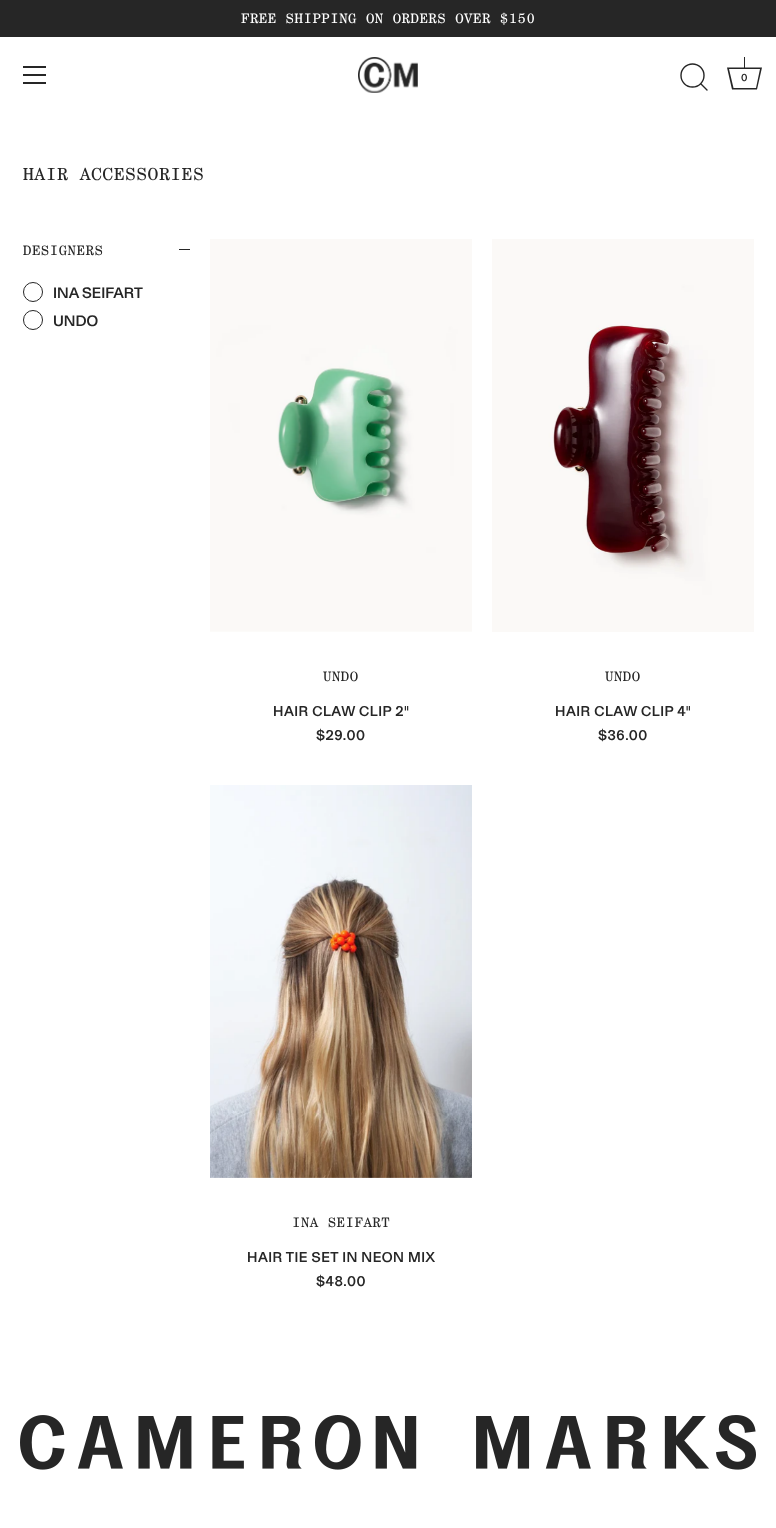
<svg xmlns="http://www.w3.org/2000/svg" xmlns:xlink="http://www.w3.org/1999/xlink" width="776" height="1528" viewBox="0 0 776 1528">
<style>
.cls-1{font:14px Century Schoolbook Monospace;letter-spacing:0.5px;fill:#ffffff}
.cls-2{font:500 10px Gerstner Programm;letter-spacing:0.5px;fill:#262626}
.cls-3{font:18px Century Schoolbook Monospace;letter-spacing:0.5px;fill:#262626}
.cls-4{font:14px Century Schoolbook Monospace;letter-spacing:0.5px;fill:#262626}
.cls-5{font:500 15px Gerstner Programm;fill:#262626}
.cls-6{font:500 14px Gerstner Programm;letter-spacing:0.5px;fill:#262626}
</style>
<rect width="100%" height="100%" fill="#ffffff"/>
<rect fill="#262626" x="0" y="0" width="776" height="37"/>
<rect fill="#262626" x="23" y="66" width="23" height="2"/>
<rect fill="#262626" x="23" y="74" width="23" height="2"/>
<rect fill="#262626" x="23" y="82" width="23" height="2"/>
<image xlink:href="image0.png" x="358" y="57" width="60" height="36"/>
<circle fill="none" stroke="#262626" stroke-width="1.4" cx="692.5" cy="75.5" r="11.5"/>
<path fill="none" stroke="#262626" stroke-width="1.4" stroke-linecap="round" stroke-linejoin="round" d="M707 90L701 84"/>
<path fill="#262626" d="M760 69L756 88H733.5L729 69H760M762 67.5H727L732 89.5H757Z"/>
<rect fill="#262626" x="744" y="57" width="1" height="11"/>
<rect fill="#262626" x="179" y="249" width="11" height="1"/>
<circle fill="none" stroke="#262626" cx="33" cy="292" r="9.5"/>
<circle fill="none" stroke="#262626" cx="33" cy="320" r="9.5"/>
<image xlink:href="image1.png" x="210" y="239" width="262" height="393"/>
<image xlink:href="image2.png" x="492" y="239" width="262" height="393"/>
<image xlink:href="image3.png" x="210" y="785" width="262" height="393"/>
<image xlink:href="image4.png" x="20" y="1415" width="736" height="55"/>
<text class="cls-1" x="241" y="23">FREE SHIPPING ON ORDERS OVER $150</text>
<text class="cls-2" x="741" y="81">0</text>
<text class="cls-3" x="23" y="180">HAIR ACCESSORIES</text>
<text class="cls-4" x="23" y="255">DESIGNERS</text>
<text class="cls-5"><tspan x="53" y="298">INA SEIFART</tspan><tspan x="53" y="326">UNDO</tspan></text>
<text class="cls-4" x="323" y="681">UNDO</text>
<text class="cls-6" x="273" y="716">HAIR CLAW CLIP 2"</text>
<text class="cls-6" x="316" y="740">$29.00</text>
<text class="cls-4" x="605" y="681">UNDO</text>
<text class="cls-6" x="555" y="716">HAIR CLAW CLIP 4"</text>
<text class="cls-6" x="598" y="740">$36.00</text>
<text class="cls-4" x="292" y="1227">INA SEIFART</text>
<text class="cls-6" x="247" y="1262">HAIR TIE SET IN NEON MIX</text>
<text class="cls-6" x="316" y="1286">$48.00</text>
</svg>
